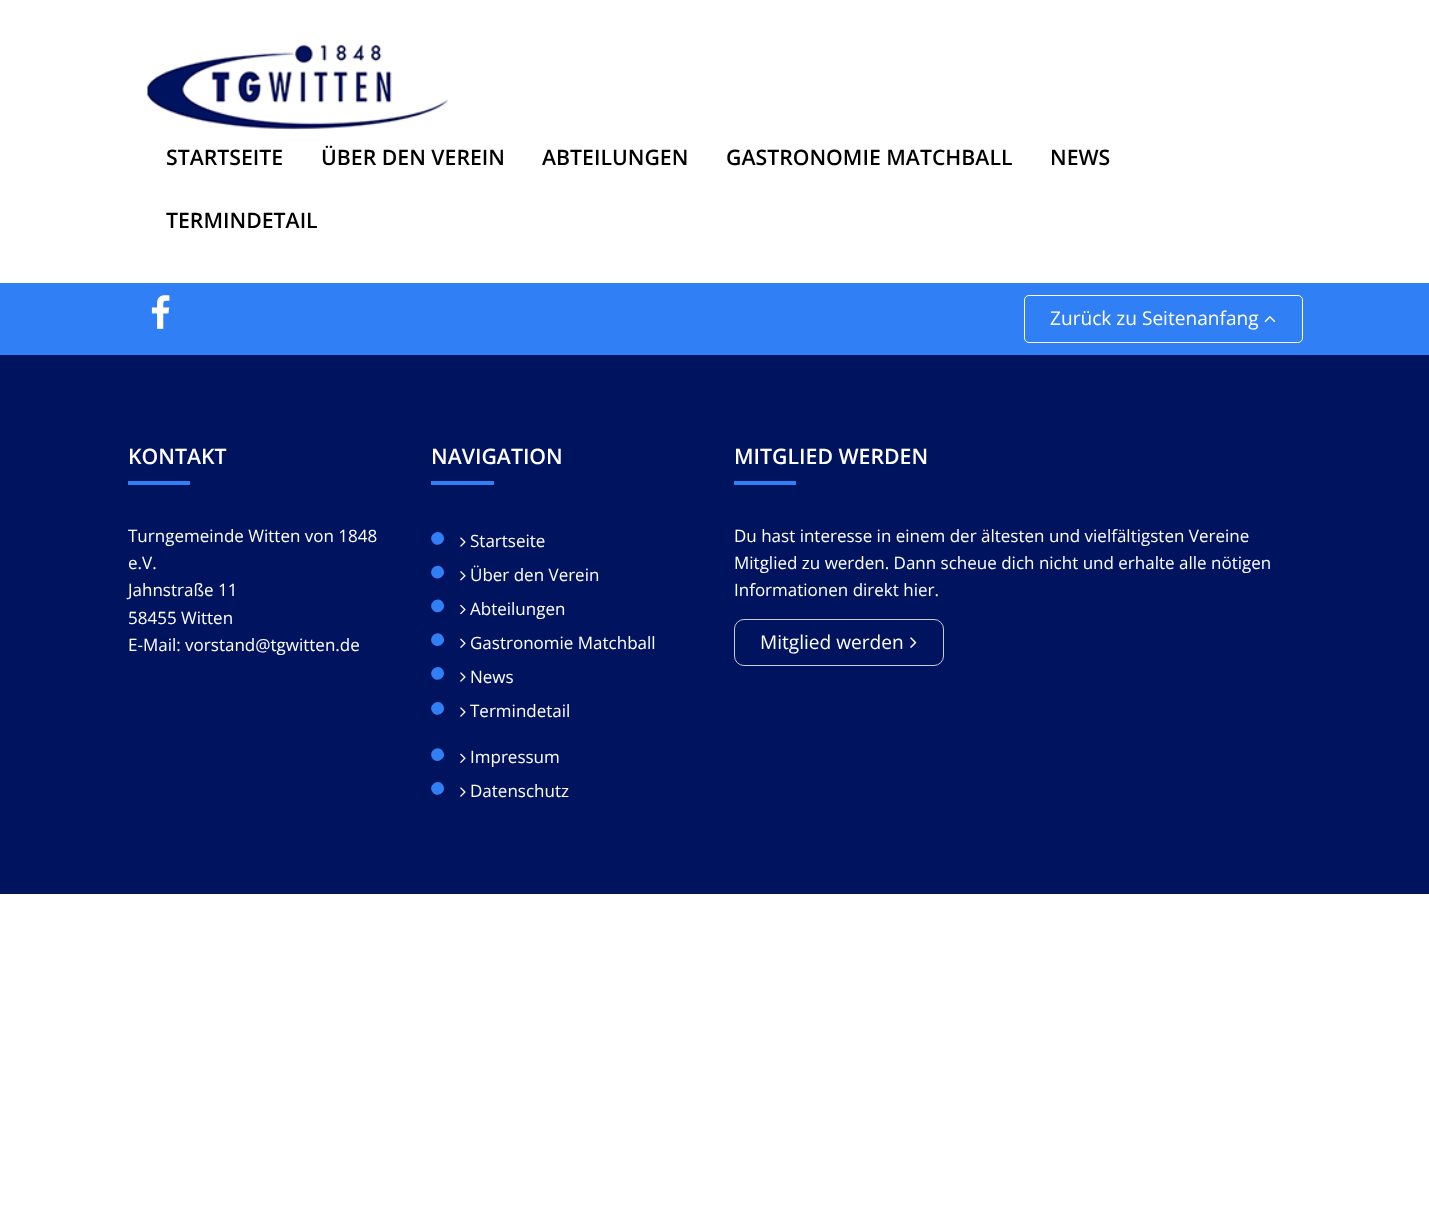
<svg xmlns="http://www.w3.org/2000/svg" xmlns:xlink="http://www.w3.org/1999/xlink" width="1429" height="1206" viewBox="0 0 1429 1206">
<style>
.cls-1{font:600 21.25px Open Sans;fill:#000000}
.cls-2{font:19.1px Open Sans;fill:#ffffff}
.cls-3{font:600 21.25px Open Sans;fill:#ffffff}
.cls-4{font:17px Open Sans;fill:#ffffff}
</style>
<rect width="100%" height="100%" fill="#ffffff"/>
<image xlink:href="image0.png" x="147" y="44" width="301" height="86"/>
<rect fill="#00135f" x="0" y="355" width="1429" height="539"/>
<rect fill="#317ff4" x="0" y="283" width="1429" height="72"/>
<image xlink:href="image1.png" x="151" y="295" width="19" height="34"/>
<rect fill="none" stroke="#ffffff" x="1024.5" y="295.5" width="278" height="47" rx="4.5"/>
<image xlink:href="image2.png" x="1264" y="316" width="12" height="7"/>
<rect fill="#317ff4" x="128" y="481" width="62" height="4"/>
<rect fill="#317ff4" x="431" y="481" width="63" height="4"/>
<path fill="#317ff4" d="M443 535C447.5 542.5 436.5 549 432 541.5C428 534.5 439 528 443 535Z"/>
<image xlink:href="image3.png" x="460" y="537" width="6" height="10"/>
<path fill="#317ff4" d="M443 569C447.5 576 436.5 582.5 432 575.5C428 568 439 561.5 443 569Z"/>
<image xlink:href="image4.png" x="460" y="571" width="6" height="10"/>
<path fill="#317ff4" d="M443 602.5C447.5 610 436.5 616.5 432 609C428 602 439 595.5 443 602.5Z"/>
<image xlink:href="image5.png" x="460" y="604" width="6" height="11"/>
<path fill="#317ff4" d="M443 636.5C447.5 643.5 436.5 650 432 643C428 635.5 439 629 443 636.5Z"/>
<image xlink:href="image6.png" x="460" y="638" width="6" height="10"/>
<path fill="#317ff4" d="M443 670C447.5 677.5 436.5 684 432 676.5C428 669.5 439 663 443 670Z"/>
<image xlink:href="image3.png" x="460" y="672" width="6" height="10"/>
<path fill="#317ff4" d="M443 705C447.5 712.5 436.5 719 432 711.5C428 704.5 439 698 443 705Z"/>
<image xlink:href="image3.png" x="460" y="707" width="6" height="10"/>
<path fill="#317ff4" d="M443 751.5C447.5 758.5 436.5 765 432 758C428 750.5 439 744 443 751.5Z"/>
<image xlink:href="image6.png" x="460" y="753" width="6" height="10"/>
<path fill="#317ff4" d="M443 785C447.5 792.5 436.5 799 432 791.5C428 784.5 439 778 443 785Z"/>
<image xlink:href="image3.png" x="460" y="787" width="6" height="10"/>
<rect fill="#317ff4" x="734" y="481" width="62" height="4"/>
<rect fill="none" stroke="#cccccc" x="734.5" y="619.5" width="209" height="46" rx="9.5"/>
<image xlink:href="image7.png" x="910" y="637" width="7" height="11"/>
<text class="cls-1" x="166" y="165">STARTSEITE</text>
<text class="cls-1" x="321" y="165">ÜBER DEN VEREIN</text>
<text class="cls-1" x="542" y="165">ABTEILUNGEN</text>
<text class="cls-1" x="726" y="165">GASTRONOMIE MATCHBALL</text>
<text class="cls-1" x="1050" y="165">NEWS</text>
<text class="cls-1" x="166" y="228">TERMINDETAIL</text>
<text class="cls-2" x="1050" y="325">Zurück zu Seitenanfang</text>
<text class="cls-3" x="128" y="464">KONTAKT</text>
<text class="cls-4"><tspan x="128" y="542">Turngemeinde Witten von 1848</tspan><tspan x="128" y="569">e.V.</tspan><tspan x="128" y="596">Jahnstraße 11</tspan><tspan x="128" y="624">58455 Witten</tspan><tspan x="128" y="651">E-Mail: vorstand@tgwitten.de</tspan></text>
<text class="cls-3" x="431" y="464">NAVIGATION</text>
<text class="cls-4" x="470" y="547">Startseite</text>
<text class="cls-4" x="470" y="581">Über den Verein</text>
<text class="cls-4" x="470" y="615">Abteilungen</text>
<text class="cls-4" x="470" y="649">Gastronomie Matchball</text>
<text class="cls-4" x="470" y="683">News</text>
<text class="cls-4" x="470" y="717">Termindetail</text>
<text class="cls-4" x="470" y="763">Impressum</text>
<text class="cls-4" x="470" y="797">Datenschutz</text>
<text class="cls-3" x="734" y="464">MITGLIED WERDEN</text>
<text class="cls-4"><tspan x="734" y="542">Du hast interesse in einem der ältesten und vielfältigsten Vereine</tspan><tspan x="734" y="569">Mitglied zu werden. Dann scheue dich nicht und erhalte alle nötigen</tspan><tspan x="734" y="596">Informationen direkt hier.</tspan></text>
<text class="cls-2" x="760" y="649">Mitglied werden</text>
</svg>
